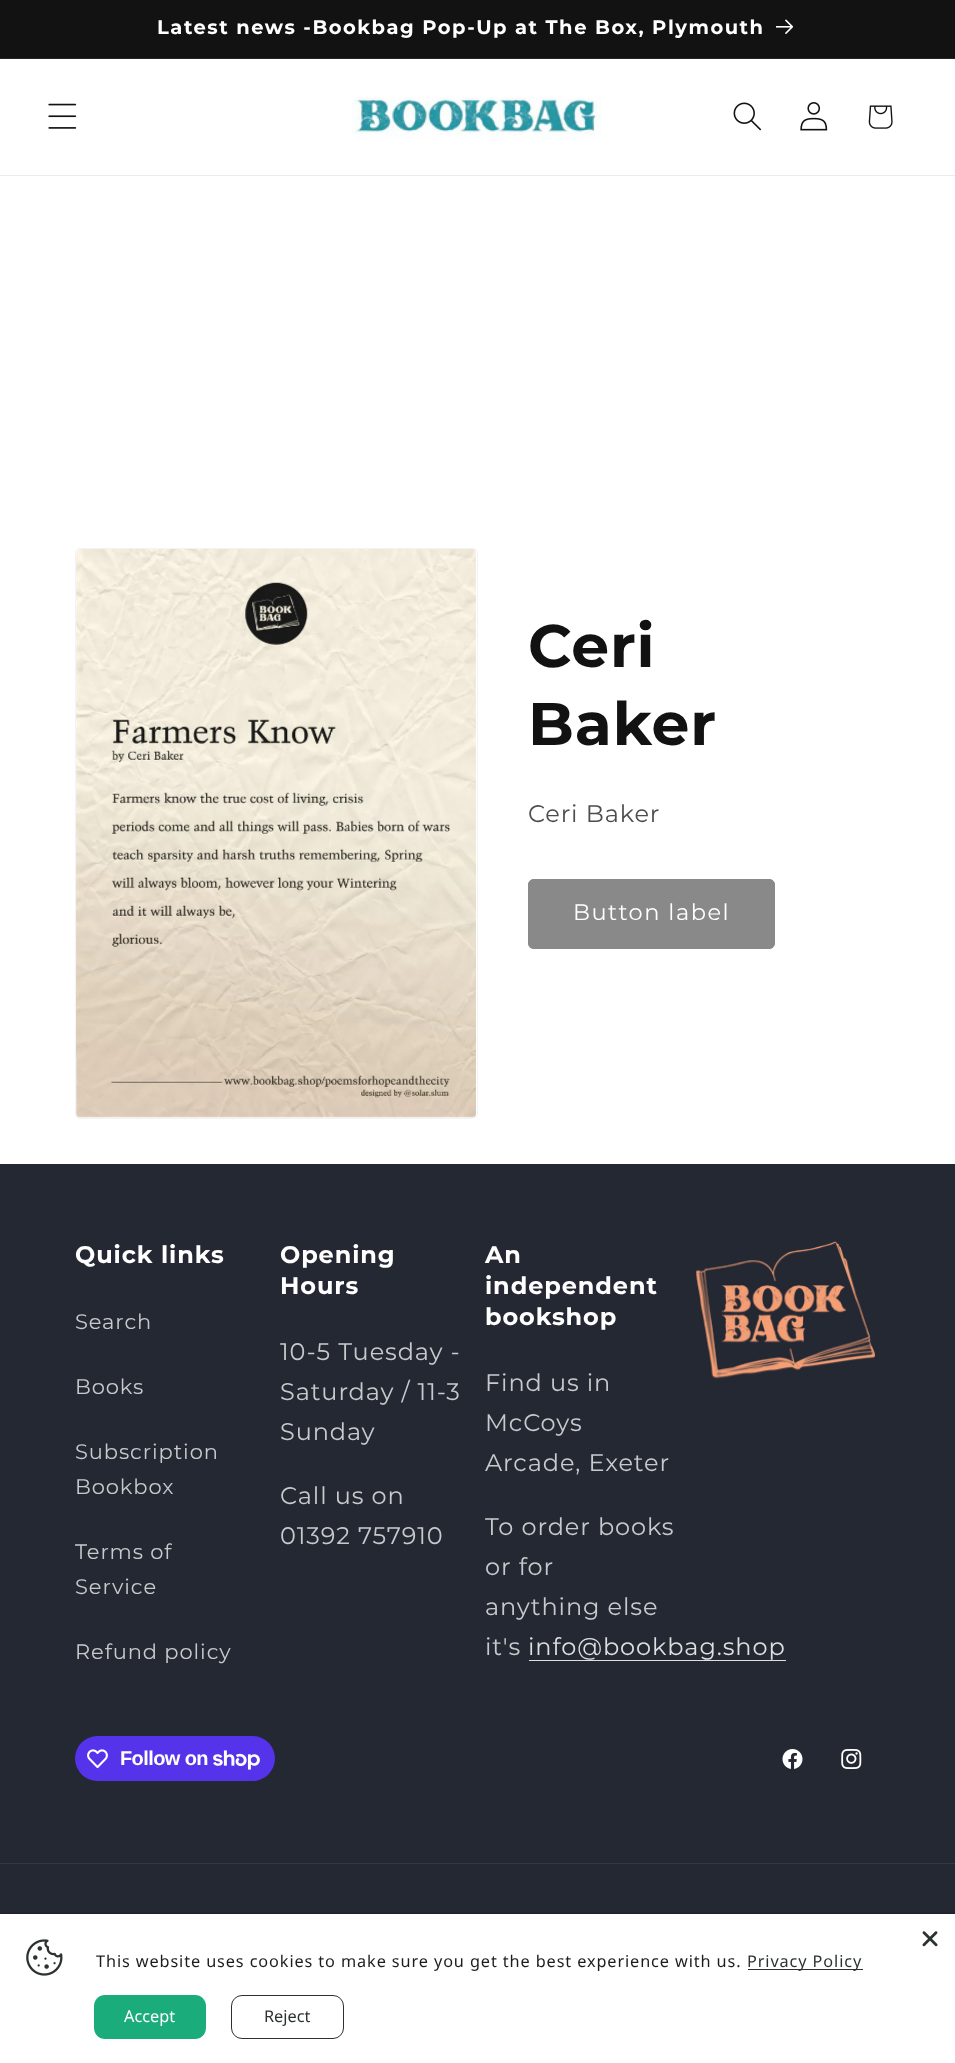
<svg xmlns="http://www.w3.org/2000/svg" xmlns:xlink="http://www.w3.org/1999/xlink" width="955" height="2063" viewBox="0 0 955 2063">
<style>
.cls-1{font:bold 19.5px Montserrat;letter-spacing:1.5px;fill:#ffffff}
.cls-2{font:bold 60px Montserrat;letter-spacing:0.9px;fill:#121212}
.cls-3{font:100 24px Montserrat;letter-spacing:0.9px;fill:#4d4d4d}
.cls-4{font:100 22.5px Montserrat;letter-spacing:1.5px;fill:#ffffff}
.cls-5{font:bold 24px Montserrat;letter-spacing:0.9px;fill:#ffffff}
.cls-6{font:100 21px Montserrat;letter-spacing:0.9px;fill:#c8c9cc}
.cls-7{font:100 24px Montserrat;letter-spacing:0.9px;fill:#c8c9cc}
.cls-8{font:100 24px Montserrat;letter-spacing:0.9px;fill:#dedfe0}
.cls-9{font:bold 20px Liberation Sans;letter-spacing:-0.6px;fill:#ffffff}
.cls-10{font:16.25px Noto Sans;letter-spacing:0.9px;fill:#1d1d1d}
.cls-11{font:16.25px Noto Sans;letter-spacing:0.9px;fill:#2c332f}
.cls-12{font:16.25px Noto Sans;fill:#ffffff}
.cls-13{font:16.25px Noto Sans;fill:#2c332f}
</style>
<rect width="100%" height="100%" fill="#ffffff"/>
<rect fill="#121212" x="0" y="0" width="955" height="58"/>
<rect fill="#252525" x="0" y="58" width="955" height="1"/>
<image xlink:href="image0.png" x="776" y="19" width="18" height="15"/>
<rect fill="#ececec" x="0" y="175" width="955" height="1"/>
<image xlink:href="image1.png" x="48" y="103" width="29" height="26"/>
<image xlink:href="image2.png" x="352" y="97" width="250" height="43"/>
<image xlink:href="image3.png" x="733" y="102" width="28" height="29"/>
<image xlink:href="image4.png" x="800" y="102" width="28" height="29"/>
<image xlink:href="image5.png" x="868" y="105" width="25" height="24"/>
<rect fill="none" stroke="#f3f3f3" x="75.5" y="548.5" width="402" height="570" rx="4.5"/>
<image xlink:href="image6.png" x="76" y="549" width="400" height="569"/>
<rect fill="#898989" x="528" y="879" width="247" height="70" rx="6"/>
<rect fill="none" stroke="#898989" x="528.5" y="879.5" width="246" height="69" rx="5.5"/>
<rect fill="#242833" x="0" y="1164" width="955" height="750"/>
<rect fill="#dedfe0" x="529" y="1660" width="257" height="1"/>
<image xlink:href="image7.png" x="696" y="1240" width="180" height="139"/>
<rect fill="#5433eb" x="75" y="1736" width="200" height="45" rx="22.5"/>
<image xlink:href="image8.png" x="87" y="1749" width="21" height="20"/>
<image xlink:href="image9.png" x="213" y="1750" width="47" height="20"/>
<image xlink:href="image10.png" x="782" y="1749" width="21" height="20"/>
<image xlink:href="image11.png" x="841" y="1749" width="21" height="20"/>
<rect fill="#363943" x="0" y="1863" width="955" height="1"/>
<rect fill="#000000" fill-opacity="0.5" filter="blur(1px)" x="0" y="1914" width="955" height="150"/>
<rect fill="#ffffff" x="0" y="1914" width="955" height="149"/>
<image xlink:href="image12.png" x="922" y="1931" width="16" height="16"/>
<image xlink:href="image13.png" x="26" y="1939" width="37" height="37"/>
<rect fill="#2c332f" x="748" y="1969" width="115" height="1"/>
<rect fill="#1aac7a" x="94" y="1995" width="112" height="44" rx="11"/>
<rect fill="none" stroke="#2c332f" x="231.5" y="1995.5" width="112" height="43" rx="10.5"/>
<text class="cls-1" x="157" y="34">Latest news -Bookbag Pop-Up at The Box, Plymouth</text>
<text class="cls-2"><tspan x="528" y="667">Ceri</tspan><tspan x="528" y="745">Baker</tspan></text>
<text class="cls-3" x="528" y="822">Ceri Baker</text>
<text class="cls-4" x="573" y="920">Button label</text>
<text class="cls-5" x="75" y="1263">Quick links</text>
<text class="cls-6" x="75" y="1329">Search</text>
<text class="cls-6" x="75" y="1394">Books</text>
<text class="cls-6"><tspan x="75" y="1459">Subscription</tspan><tspan x="75" y="1494">Bookbox</tspan></text>
<text class="cls-6"><tspan x="75" y="1559">Terms of</tspan><tspan x="75" y="1594">Service</tspan></text>
<text class="cls-6" x="75" y="1659">Refund policy</text>
<text class="cls-5"><tspan x="280" y="1263">Opening</tspan><tspan x="280" y="1294">Hours</tspan></text>
<text class="cls-7"><tspan x="280" y="1360">10-5 Tuesday -</tspan><tspan x="280" y="1400">Saturday / 11-3</tspan><tspan x="280" y="1440">Sunday</tspan></text>
<text class="cls-7"><tspan x="280" y="1504">Call us on</tspan><tspan x="280" y="1544">01392 757910</tspan></text>
<text class="cls-5"><tspan x="485" y="1263">An</tspan><tspan x="485" y="1294">independent</tspan><tspan x="485" y="1325">bookshop</tspan></text>
<text class="cls-7"><tspan x="485" y="1391">Find us in</tspan><tspan x="485" y="1431">McCoys</tspan><tspan x="485" y="1471">Arcade, Exeter</tspan></text>
<text class="cls-7"><tspan x="485" y="1535">To order books</tspan><tspan x="485" y="1575">or for</tspan><tspan x="485" y="1615">anything else</tspan><tspan x="485" y="1655">it's</tspan></text>
<text class="cls-8" x="528" y="1655">info@bookbag.shop</text>
<text class="cls-9" x="120" y="1765">Follow on</text>
<text class="cls-10" x="96" y="1967">This website uses cookies to make sure you get the best experience with us.</text>
<text class="cls-11" x="747" y="1967">Privacy Policy</text>
<text class="cls-12" x="124" y="2022">Accept</text>
<text class="cls-13" x="264" y="2022">Reject</text>
</svg>
